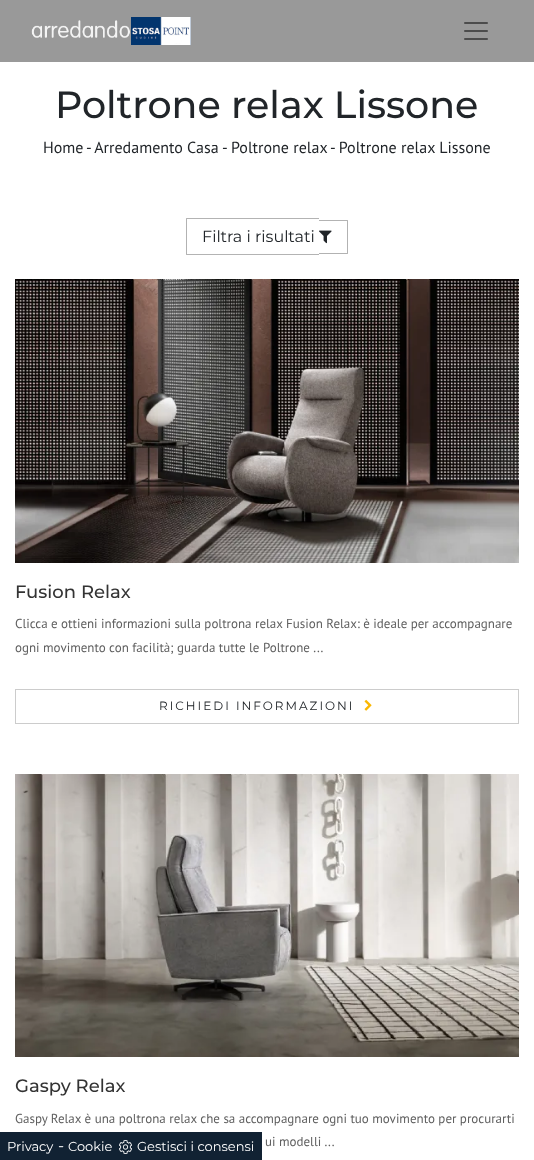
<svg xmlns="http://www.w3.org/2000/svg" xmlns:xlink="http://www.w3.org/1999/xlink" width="534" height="1160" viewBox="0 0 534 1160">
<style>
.cls-1{font:500 38px Montserrat;fill:#212529}
.cls-2{font:16px PT Sans;fill:#212529}
.cls-3{font:16px Montserrat;fill:#212529}
.cls-4{font:500 18px Montserrat;fill:#333333}
.cls-5{font:13px PT Sans;fill:#606060}
.cls-6{font:12px Montserrat;letter-spacing:2px;fill:#212529}
.cls-7{font:13px Montserrat;fill:#ffffff}
.cls-8{font:16px Montserrat;fill:#ffffff}
</style>
<rect width="100%" height="100%" fill="#ffffff"/>
<rect fill="#999999" x="0" y="0" width="534" height="62"/>
<image xlink:href="image0.png" x="31" y="20" width="99" height="18"/>
<image xlink:href="image1.png" x="131" y="17" width="60" height="28"/>
<image xlink:href="image2.png" x="464" y="22" width="24" height="18"/>
<path fill="#b3b3b3" d="M186 218H319V219H187Z"/>
<path fill="#b3b3b3" d="M319 255H186L187 254H319Z"/>
<path fill="#010101" fill-opacity="0.3" d="M186 255V218L187 219V254Z"/>
<path fill="#b3b3b3" d="M319 220H348L347 221H319Z"/>
<path fill="#010101" fill-opacity="0.3" d="M348 220V254L347 253V221Z"/>
<path fill="#010101" fill-opacity="0.3" d="M348 254H319V253H347Z"/>
<image xlink:href="image3.png" x="319" y="230" width="13" height="14"/>
<image xlink:href="image4.png" x="15" y="279" width="504" height="284"/>
<rect fill="none" stroke="#cccccc" x="15.5" y="689.5" width="503" height="34"/>
<image xlink:href="image5.png" x="364" y="699" width="8" height="12"/>
<image xlink:href="image6.png" x="15" y="774" width="504" height="283"/>
<rect fill="#112233" x="0" y="1132" width="262" height="28"/>
<image xlink:href="image7.png" x="119" y="1140" width="13" height="14"/>
<text class="cls-1" x="55" y="118">Poltrone relax Lissone</text>
<text class="cls-2" x="43" y="153">Home</text>
<text class="cls-2" x="86" y="153">- Arredamento Casa</text>
<text class="cls-2" x="222" y="153">-</text>
<text class="cls-2" x="231" y="153">Poltrone relax</text>
<text class="cls-2" x="330" y="153">- Poltrone relax Lissone</text>
<text class="cls-3" x="202" y="242">Filtra i risultati</text>
<text class="cls-4" x="15" y="598">Fusion Relax</text>
<text class="cls-5"><tspan x="15" y="628">Clicca e ottieni informazioni sulla poltrona relax Fusion Relax: è ideale per accompagnare</tspan><tspan x="15" y="652">ogni movimento con facilità; guarda tutte le Poltrone ...</tspan></text>
<text class="cls-6" x="159" y="710">RICHIEDI INFORMAZIONI</text>
<text class="cls-4" x="15" y="1092">Gaspy Relax</text>
<text class="cls-5" x="15" y="1123">Gaspy Relax è una poltrona relax che sa accompagnare ogni tuo movimento per procurarti</text>
<text class="cls-5" x="265" y="1146">ui modelli ...</text>
<text class="cls-7" x="7" y="1151">Privacy</text>
<text class="cls-8" x="58" y="1151">-</text>
<text class="cls-7" x="68" y="1151">Cookie</text>
<text class="cls-7" x="137" y="1151">Gestisci i consensi</text>
</svg>
